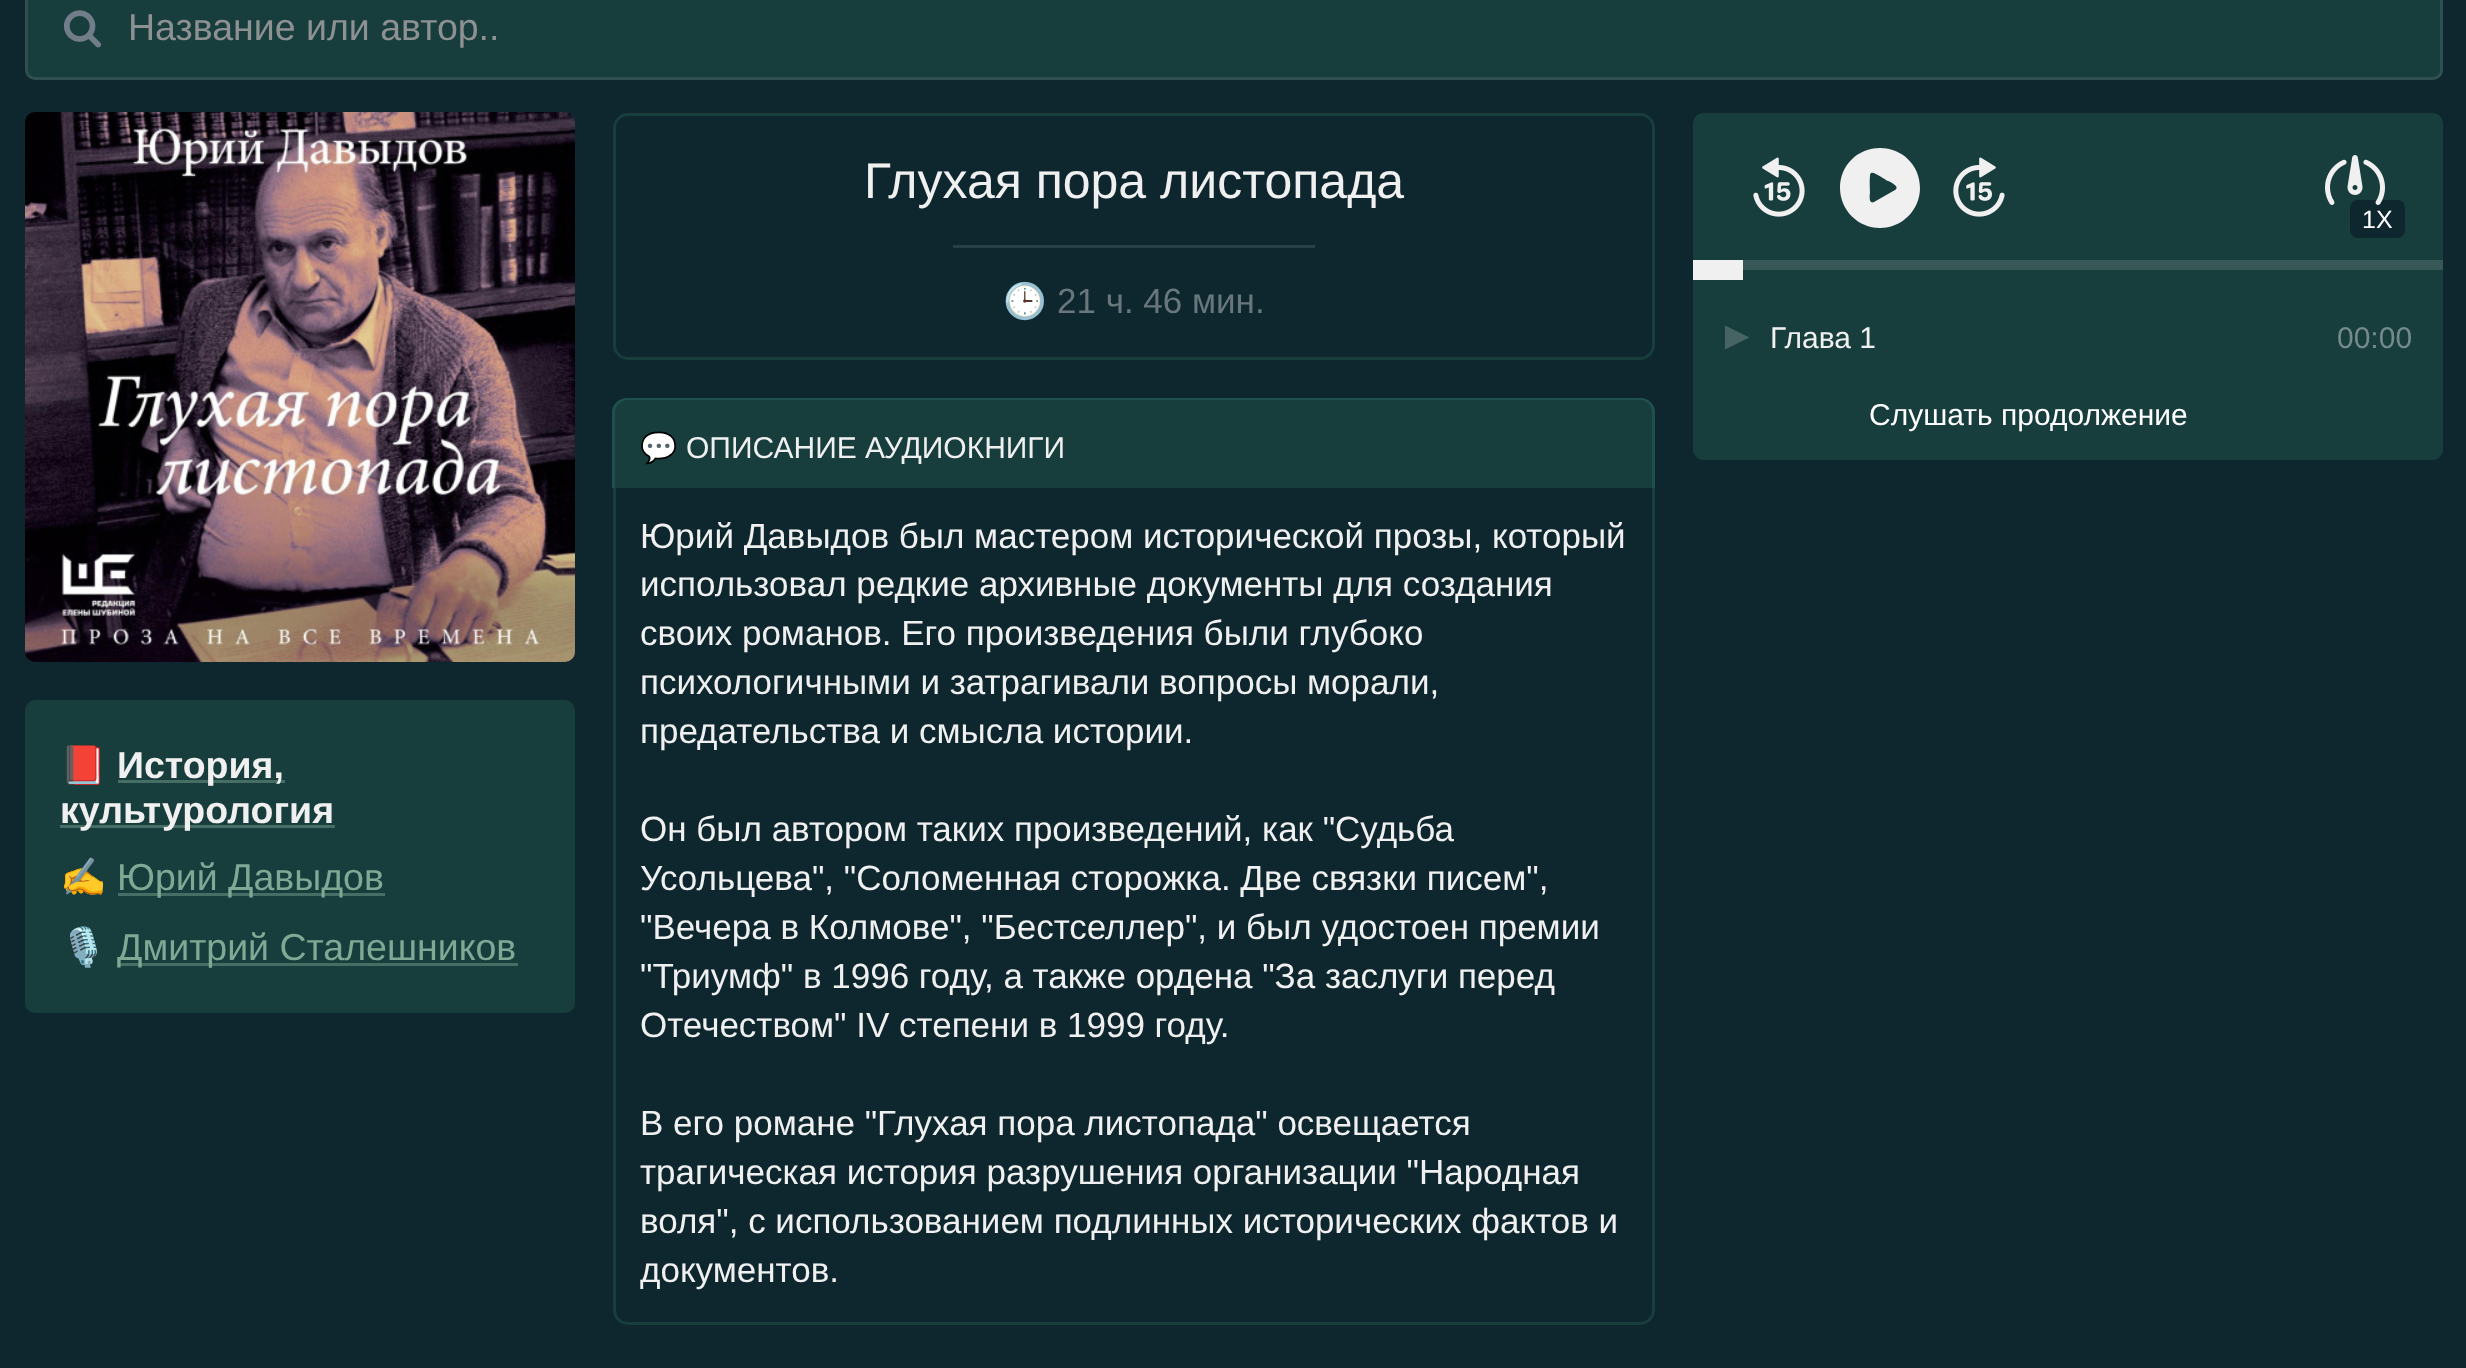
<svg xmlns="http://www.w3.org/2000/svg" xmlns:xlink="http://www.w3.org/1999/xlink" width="2466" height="1368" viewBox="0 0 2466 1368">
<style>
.cls-1{font:37.5px Liberation Sans;fill:#8e9192}
.cls-2{font:50px Liberation Sans;fill:#f0f0f0}
.cls-3{font:35px Noto Color Emoji;fill:#68777c}
.cls-4{font:35px Liberation Sans;fill:#68777c}
.cls-5{font:25px Liberation Sans;fill:#ffffff}
.cls-6{font:30px Liberation Sans;fill:#f0f0f0}
.cls-7{font:30px Liberation Sans;fill:#748b8b}
.cls-8{font:30px Liberation Sans;fill:#ffffff}
.cls-9{font:37.5px Noto Color Emoji;fill:#f0f0f0}
.cls-10{font:bold 37.5px Liberation Sans;fill:#f0f0f0}
.cls-11{font:37.5px Liberation Sans;fill:#7ea995}
.cls-12{font:30px Noto Color Emoji;fill:#f0f0f0}
.cls-13{font:35px Liberation Sans;fill:#f0f0f0}
</style>
<rect width="100%" height="100%" fill="#0e272f"/>
<rect fill="#183d3d" x="25" y="-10" width="2418" height="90" rx="10"/>
<image xlink:href="image0.png" x="63" y="10" width="38" height="38"/>
<rect fill="none" stroke="#ffffff" stroke-opacity="0.1" stroke-width="3" x="26.5" y="-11.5" width="2415" height="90" rx="8.5"/>
<image xlink:href="image1.png" x="25" y="112" width="550" height="550"/>
<rect fill="none" stroke="#183d3d" stroke-width="3" x="614.5" y="114.5" width="1039" height="244" rx="13.5"/>
<rect fill="#293f46" x="953" y="245" width="362" height="3"/>
<rect fill="#183d3d" x="1693" y="113" width="750" height="347" rx="10"/>
<image xlink:href="image2.png" x="1753" y="157" width="52" height="60"/>
<path fill="#f0f0f0" fill-rule="evenodd" d="M1920 188C1920 210 1902 228 1880 228C1858 228 1840 210 1840 188C1840 165 1858 148 1880 148C1902 148 1920 165 1920 188ZM1895 190C1901 187 1889 181 1888 181C1885 180 1874 171 1871 173C1869 174 1870 189 1870 192C1870 193 1868 205 1874 202Z"/>
<image xlink:href="image3.png" x="1953" y="157" width="52" height="60"/>
<rect fill="#0e272f" x="2350" y="200" width="55" height="38" rx="8"/>
<image xlink:href="image4.png" x="2325" y="155" width="60" height="50"/>
<rect fill="#f0f0f0" x="1693" y="260" width="50" height="20"/>
<rect fill="#385858" x="1743" y="260" width="700" height="10"/>
<path fill="#466464" d="M1725 325.5V349.5L1749.5 337.5Z"/>
<rect fill="#183d3d" x="25" y="700" width="550" height="313" rx="10"/>
<rect fill="#466e65" x="118" y="780" width="167" height="3"/>
<rect fill="#466e65" x="60" y="825" width="275" height="3"/>
<rect fill="#466e65" x="118" y="893" width="267" height="3"/>
<rect fill="#466e65" x="118" y="963" width="400" height="3"/>
<rect fill="none" stroke="#183d3d" stroke-width="3" x="614.5" y="399.5" width="1039" height="924" rx="13.5"/>
<path fill="#183d3d" d="M628 398H1640C1648.5 398 1655 404.5 1655 413V488H613V413C613 404.5 619.5 398 628 398Z"/>
<path fill="#1f4f4f" fill-rule="evenodd" d="M628 398H1640C1648 398 1655 404 1655 412V488H612V412C612 404 619 398 628 398ZM628 400H1640C1647 400 1652 406 1652 412V488H615V412C615 406 621 400 628 400Z"/>
<text class="cls-1" x="128" y="40">Название или автор..</text>
<text class="cls-2" x="864" y="198">Глухая пора листопада</text>
<text class="cls-3" x="1003" y="313">🕒</text>
<text class="cls-4" x="1057" y="313">21 ч. 46 мин.</text>
<text class="cls-5" x="2362" y="228">1X</text>
<text class="cls-6" x="1770" y="348">Глава 1</text>
<text class="cls-7" x="2337" y="348">00:00</text>
<text class="cls-8" x="1869" y="425">Слушать продолжение</text>
<text class="cls-9" x="60" y="778">📕</text>
<text class="cls-10" x="117" y="778">История,</text>
<text class="cls-10" x="60" y="823">культурология</text>
<text class="cls-9" x="60" y="890">✍️</text>
<text class="cls-11" x="117" y="890">Юрий Давыдов</text>
<text class="cls-9" x="60" y="960">🎙️</text>
<text class="cls-11" x="117" y="960">Дмитрий Сталешников</text>
<text class="cls-12" x="640" y="458">💬</text>
<text class="cls-6" x="686" y="458">ОПИСАНИЕ АУДИОКНИГИ</text>
<text class="cls-13"><tspan x="640" y="548">Юрий Давыдов был мастером исторической прозы, который</tspan><tspan x="640" y="596">использовал редкие архивные документы для создания</tspan><tspan x="640" y="645">своих романов. Его произведения были глубоко</tspan><tspan x="640" y="694">психологичными и затрагивали вопросы морали,</tspan><tspan x="640" y="743">предательства и смысла истории.</tspan></text>
<text class="cls-13"><tspan x="640" y="841">Он был автором таких произведений, как "Судьба</tspan><tspan x="640" y="890">Усольцева", "Соломенная сторожка. Две связки писем",</tspan><tspan x="640" y="939">"Вечера в Колмове", "Бестселлер", и был удостоен премии</tspan><tspan x="640" y="988">"Триумф" в 1996 году, а также ордена "За заслуги перед</tspan><tspan x="640" y="1037">Отечеством" IV степени в 1999 году.</tspan></text>
<text class="cls-13"><tspan x="640" y="1135">В его романе "Глухая пора листопада" освещается</tspan><tspan x="640" y="1184">трагическая история разрушения организации "Народная</tspan><tspan x="640" y="1233">воля", с использованием подлинных исторических фактов и</tspan><tspan x="640" y="1282">документов.</tspan></text>
</svg>
